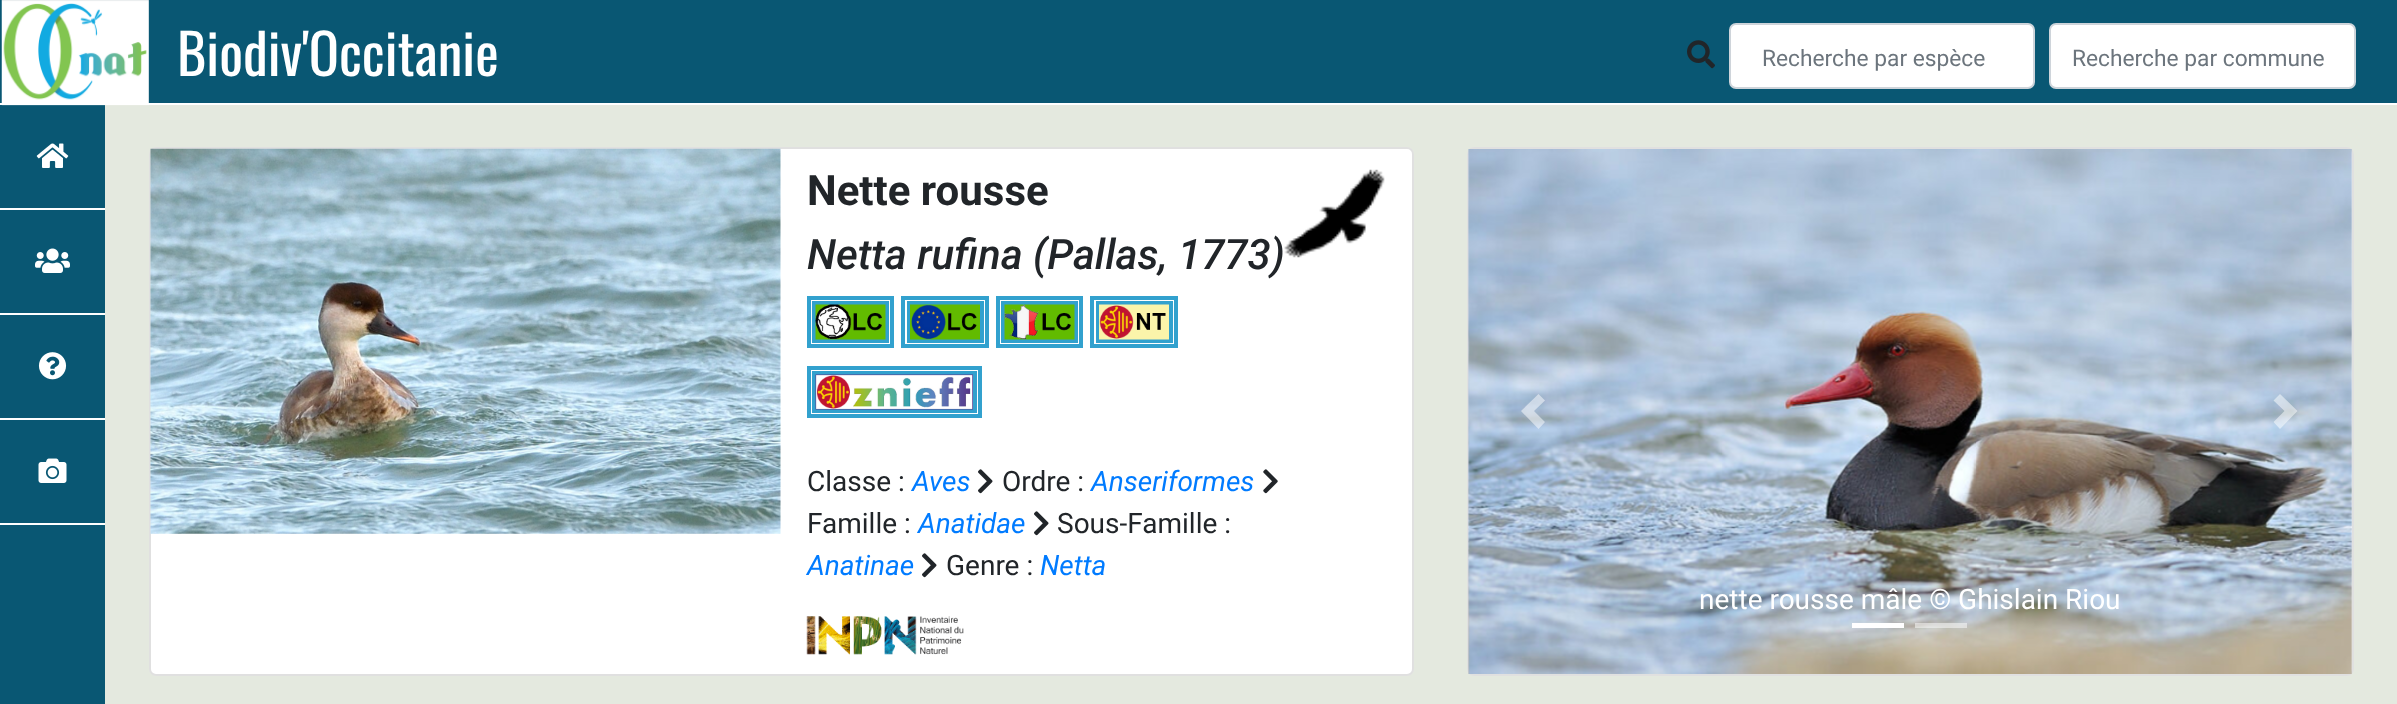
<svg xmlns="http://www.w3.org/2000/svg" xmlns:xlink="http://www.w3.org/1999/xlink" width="2397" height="704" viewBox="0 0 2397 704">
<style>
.cls-1{font:56px Oswald;fill:#ffffff}
.cls-2{font:22.75px Roboto;fill:#6c757d}
.cls-3{font:bold 42px Roboto;fill:#212529}
.cls-4{font:italic 500 42px Roboto;fill:#212529}
.cls-5{font:28px Roboto;fill:#212529}
.cls-6{font:italic 28px Roboto;fill:#007bff}
.cls-7{font:28px Roboto;fill:#ffffff}
</style>
<rect width="100%" height="100%" fill="#e4e9df"/>
<rect fill="#095773" x="0" y="0" width="2397" height="103"/>
<rect fill="#ffffff" x="0" y="103" width="2397" height="2"/>
<rect fill="#095773" x="0" y="105" width="105" height="599"/>
<image xlink:href="image0.png" x="1" y="0" width="148" height="106"/>
<image xlink:href="image1.png" x="1687" y="40" width="28" height="29"/>
<rect fill="#ffffff" stroke="#ced4da" stroke-width="2" x="1730" y="24" width="304" height="64" rx="6"/>
<rect fill="#ffffff" stroke="#ced4da" stroke-width="2" x="2050" y="24" width="305" height="64" rx="6"/>
<rect fill="#ffffff" x="0" y="208" width="105" height="2"/>
<image xlink:href="image2.png" x="36" y="143" width="33" height="25"/>
<rect fill="#ffffff" x="0" y="313" width="105" height="2"/>
<image xlink:href="image3.png" x="35" y="248" width="35" height="25"/>
<rect fill="#ffffff" x="0" y="418" width="105" height="2"/>
<image xlink:href="image4.png" x="38" y="352" width="29" height="28"/>
<rect fill="#ffffff" x="0" y="523" width="105" height="2"/>
<image xlink:href="image5.png" x="38" y="458" width="29" height="25"/>
<rect fill="#ffffff" x="149" y="147" width="1265" height="529" rx="7"/>
<rect fill="none" stroke="#000000" stroke-opacity="0.12" stroke-width="2" x="150" y="148" width="1263" height="527" rx="6"/>
<image xlink:href="image6.png" x="150" y="148" width="631" height="386"/>
<rect fill="none" stroke="#32a1ce" stroke-width="4" x="809" y="298" width="83" height="48"/>
<rect fill="none" stroke="#32a1ce" stroke-width="4" x="903" y="298" width="84" height="48"/>
<rect fill="none" stroke="#32a1ce" stroke-width="4" x="998" y="298" width="83" height="48"/>
<rect fill="none" stroke="#32a1ce" stroke-width="4" x="1092" y="298" width="84" height="48"/>
<rect fill="none" stroke="#32a1ce" stroke-width="4" x="814" y="303" width="73" height="38"/>
<rect fill="none" stroke="#32a1ce" stroke-width="4" x="909" y="303" width="73" height="38"/>
<rect fill="none" stroke="#32a1ce" stroke-width="4" x="1003" y="303" width="73" height="38"/>
<rect fill="none" stroke="#32a1ce" stroke-width="4" x="1098" y="303" width="73" height="38"/>
<image xlink:href="image7.png" x="815" y="304" width="71" height="36"/>
<image xlink:href="image8.png" x="910" y="304" width="70" height="36"/>
<image xlink:href="image9.png" x="1004" y="304" width="71" height="36"/>
<image xlink:href="image10.png" x="1099" y="304" width="70" height="36"/>
<rect fill="none" stroke="#32a1ce" stroke-width="4" x="809" y="368" width="171" height="48"/>
<rect fill="none" stroke="#32a1ce" stroke-width="4" x="814" y="373" width="161" height="38"/>
<image xlink:href="image11.png" x="815" y="374" width="158" height="36"/>
<image xlink:href="image12.png" x="978" y="469" width="15" height="25"/>
<image xlink:href="image13.png" x="1263" y="469" width="15" height="25"/>
<image xlink:href="image12.png" x="1034" y="511" width="15" height="25"/>
<image xlink:href="image12.png" x="922" y="553" width="15" height="25"/>
<image xlink:href="image14.png" x="806" y="616" width="158" height="39"/>
<image xlink:href="image15.png" x="1284" y="169" width="101" height="89"/>
<rect fill="#ffffff" x="1467" y="147" width="887" height="529" rx="7"/>
<rect fill="none" stroke="#000000" stroke-opacity="0.12" stroke-width="2" x="1468" y="148" width="885" height="527" rx="6"/>
<image xlink:href="image16.png" x="1468" y="149" width="884" height="525"/>
<path fill="#ffffff" fill-opacity="0.5" d="M1538.5 394L1521 411L1538.5 429L1545 422L1534 411L1545 400.5Z"/>
<path fill="#ffffff" fill-opacity="0.5" d="M2280 394L2273.5 400.5L2284.5 411L2273.5 422L2280 429L2297.5 411Z"/>
<rect fill="#ffffff" x="1852" y="623" width="52" height="5"/>
<rect fill="#ffffff" fill-opacity="0.5" x="1915" y="623" width="52" height="5"/>
<text class="cls-1" x="177" y="76">Biodiv'Occitanie</text>
<text class="cls-2" x="1762" y="66">Recherche par espèce</text>
<text class="cls-2" x="2072" y="66">Recherche par commune</text>
<text class="cls-3" x="807" y="205">Nette rousse</text>
<text class="cls-4" x="807" y="269">Netta rufina (Pallas, 1773)</text>
<text class="cls-5" x="807" y="491">Classe :</text>
<text class="cls-6" x="912" y="491">Aves</text>
<text class="cls-5" x="1002" y="491">Ordre :</text>
<text class="cls-6" x="1091" y="491">Anseriformes</text>
<text class="cls-5" x="807" y="533">Famille :</text>
<text class="cls-6" x="918" y="533">Anatidae</text>
<text class="cls-5" x="1057" y="533">Sous-Famille :</text>
<text class="cls-6" x="807" y="575">Anatinae</text>
<text class="cls-5" x="946" y="575">Genre :</text>
<text class="cls-6" x="1040" y="575">Netta</text>
<text class="cls-7" x="1699" y="609">nette rousse mâle © Ghislain Riou</text>
</svg>
